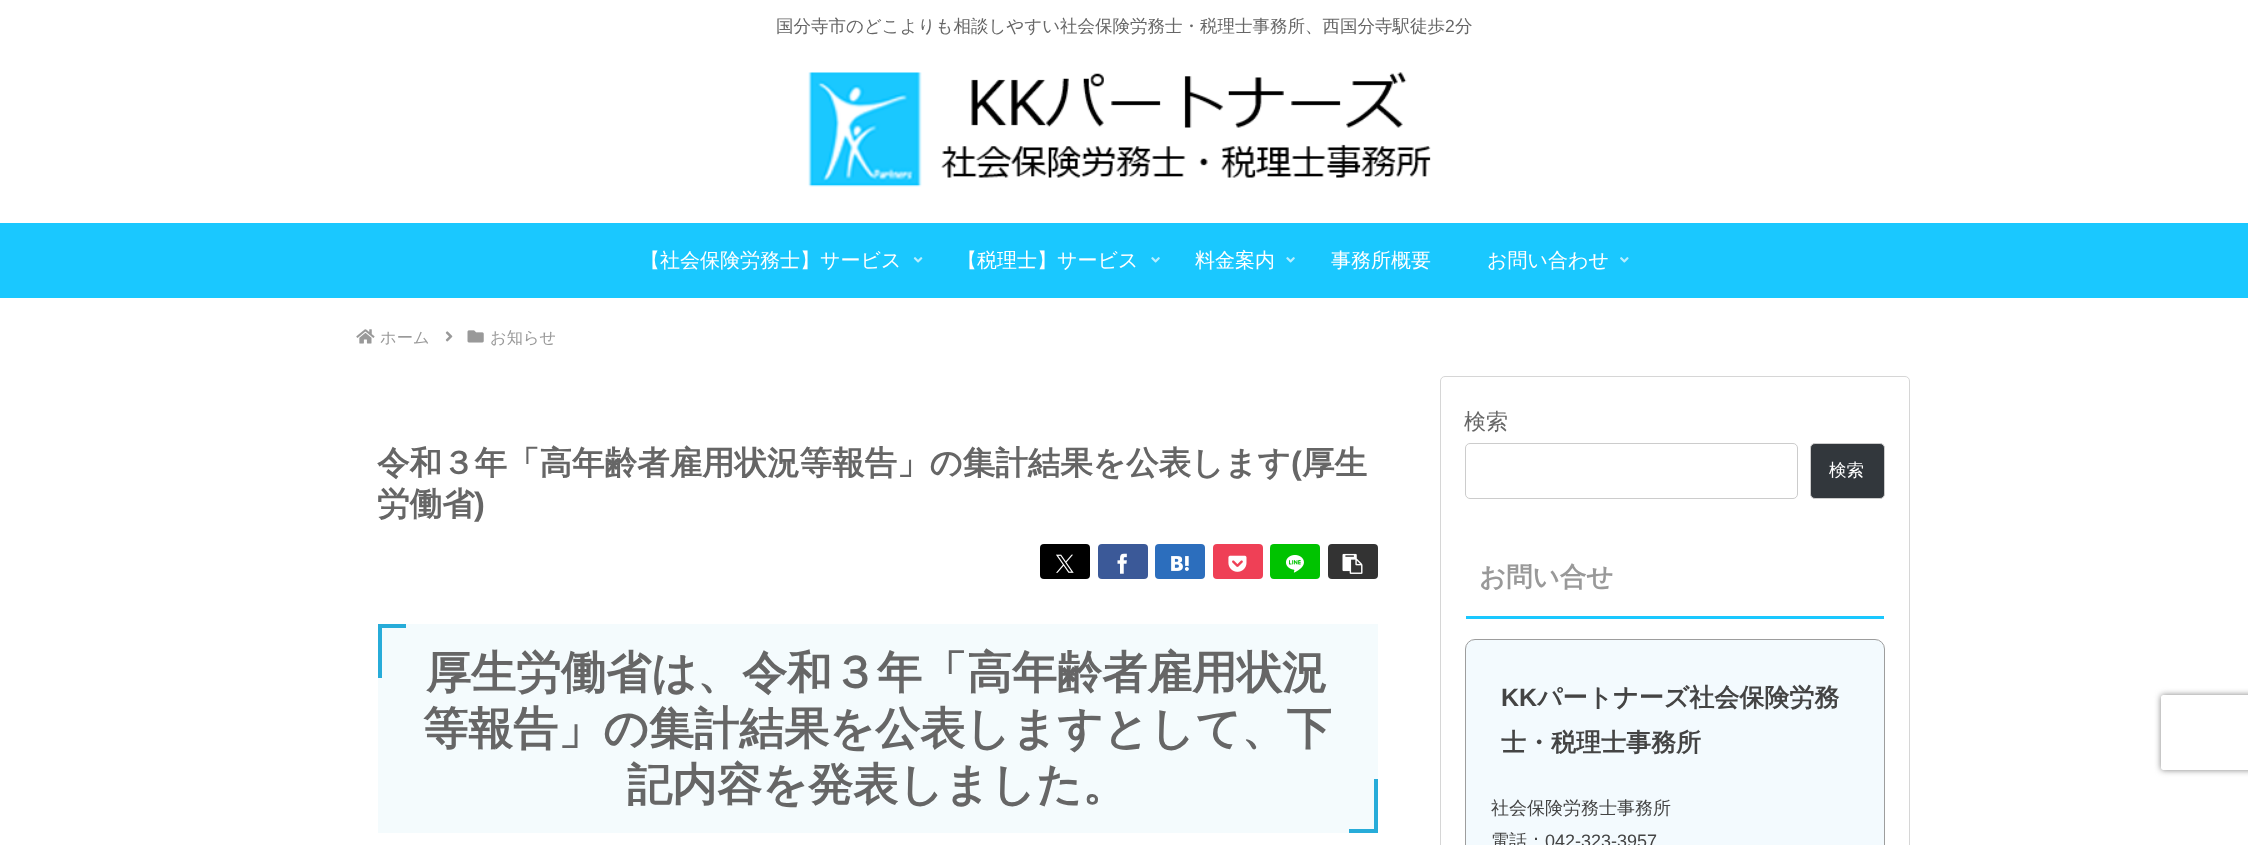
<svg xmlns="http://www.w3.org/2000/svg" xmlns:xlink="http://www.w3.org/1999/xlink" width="2248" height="845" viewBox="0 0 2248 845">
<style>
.cls-1{font:500 17.5px WenQuanYi Zen Hei;fill:#666666}
.cls-2{font:17.5px Liberation Sans;fill:#666666}
.cls-3{font:500 20px WenQuanYi Zen Hei;fill:#ffffff}
.cls-4{font:500 16.25px WenQuanYi Zen Hei;fill:#999999}
.cls-5{font:bold 32.5px WenQuanYi Zen Hei;fill:#666666}
.cls-6{font:bold 32.5px Liberation Sans;fill:#666666}
.cls-7{font:bold 45px WenQuanYi Zen Hei;fill:#666666}
.cls-8{font:500 22px WenQuanYi Zen Hei;fill:#666666}
.cls-9{font:500 17.5px WenQuanYi Zen Hei;fill:#ffffff}
.cls-10{font:bold 26.5px WenQuanYi Zen Hei;fill:#999999}
.cls-11{font:bold 25px Liberation Sans;fill:#444444}
.cls-12{font:bold 25px WenQuanYi Zen Hei;fill:#444444}
.cls-13{font:500 18px WenQuanYi Zen Hei;fill:#444444}
.cls-14{font:18px Liberation Sans;fill:#444444}
</style>
<defs>
<clipPath id="clip1"><path d="M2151 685H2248V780H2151ZM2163.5 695H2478.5C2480 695 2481 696 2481 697.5V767.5C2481 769 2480 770 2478.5 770H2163.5C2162 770 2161 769 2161 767.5V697.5C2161 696 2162 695 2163.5 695Z" clip-rule="evenodd"/></clipPath>
</defs>
<rect width="100%" height="100%" fill="#ffffff"/>
<image xlink:href="image0.png" x="808" y="72" width="623" height="115"/>
<rect fill="#1ac8ff" x="0" y="223" width="2248" height="75"/>
<image xlink:href="image1.png" x="913" y="257" width="10" height="6"/>
<image xlink:href="image2.png" x="1151" y="257" width="9" height="6"/>
<image xlink:href="image2.png" x="1286" y="257" width="9" height="6"/>
<image xlink:href="image3.png" x="1620" y="257" width="9" height="6"/>
<image xlink:href="image4.png" x="356" y="329" width="19" height="15"/>
<image xlink:href="image5.png" x="445" y="331" width="8" height="11"/>
<image xlink:href="image6.png" x="467" y="330" width="17" height="13"/>
<rect fill="#000000" x="1040" y="544" width="50" height="35" rx="4"/>
<image xlink:href="image7.png" x="1056" y="554" width="18" height="19"/>
<rect fill="#3b5998" x="1098" y="544" width="50" height="35" rx="4"/>
<image xlink:href="image8.png" x="1117" y="553" width="10" height="21"/>
<rect fill="#2c6ebd" x="1155" y="544" width="50" height="35" rx="4"/>
<image xlink:href="image9.png" x="1171" y="556" width="18" height="15"/>
<rect fill="#ef4056" x="1213" y="544" width="50" height="35" rx="4"/>
<image xlink:href="image10.png" x="1228" y="555" width="19" height="17"/>
<rect fill="#00c300" x="1270" y="544" width="50" height="35" rx="4"/>
<image xlink:href="image11.png" x="1286" y="555" width="18" height="18"/>
<rect fill="#333333" x="1328" y="544" width="50" height="35" rx="4"/>
<image xlink:href="image12.png" x="1342" y="553" width="21" height="21"/>
<rect fill="#f4fbfd" x="378" y="624" width="1000" height="209"/>
<rect fill="#27acd9" x="378" y="624" width="28" height="4"/>
<rect fill="#27acd9" x="378" y="624" width="4" height="54"/>
<rect fill="#27acd9" x="1374" y="779" width="4" height="54"/>
<rect fill="#27acd9" x="1349" y="829" width="29" height="4"/>
<rect fill="none" stroke="#d6d6d6" x="1440.5" y="376.5" width="469" height="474" rx="4.5"/>
<rect fill="none" stroke="#cccccc" x="1465.5" y="443.5" width="332" height="55" rx="4.5"/>
<rect fill="#32373c" stroke="#cccccc" x="1810.5" y="443.5" width="74" height="55" rx="4.5"/>
<rect fill="#1ac8ff" x="1466" y="616" width="418" height="3"/>
<rect fill="#f3fafe" stroke="#9d9d9d" x="1465.5" y="639.5" width="419" height="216" rx="9.5"/>
<g clip-path="url(#clip1)">
<rect fill="#808080" filter="blur(3px)" x="2161" y="695" width="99" height="75" rx="2.5"/>
</g>
<text class="cls-1" x="776" y="32">国分寺市のどこよりも相談しやすい社会保険労務士・税理士事務所、西国分寺駅徒歩</text>
<text class="cls-2" x="1445" y="32">2</text>
<text class="cls-1" x="1455" y="32">分</text>
<text class="cls-3" x="640" y="267">【社会保険労務士】サービス</text>
<text class="cls-3" x="957" y="267">【税理士】サービス</text>
<text class="cls-3" x="1195" y="267">料金案内</text>
<text class="cls-3" x="1331" y="267">事務所概要</text>
<text class="cls-3" x="1487" y="267">お問い合わせ</text>
<text class="cls-4" x="380" y="343">ホーム</text>
<text class="cls-4" x="490" y="343">お知らせ</text>
<text class="cls-5" x="377" y="474">令和３年「高年齢者雇用状況等報告」の集計結果を公表します</text>
<text class="cls-6" x="1291" y="474">(</text>
<text class="cls-5" x="1302" y="474">厚生</text>
<text class="cls-5" x="377" y="515">労働省</text>
<text class="cls-6" x="474" y="515">)</text>
<text class="cls-7" x="426" y="688">厚生労働省は、令和３年「高年齢者雇用状況</text>
<text class="cls-7" x="423" y="744">等報告」の集計結果を公表しますとして、下</text>
<text class="cls-7" x="627" y="800">記内容を発表しました。</text>
<text class="cls-8" x="1464" y="429">検索</text>
<text class="cls-9" x="1829" y="476">検索</text>
<text class="cls-10" x="1479" y="586">お問い合せ</text>
<text class="cls-11" x="1501" y="706">KK</text>
<text class="cls-12" x="1537" y="706">パートナーズ社会保険労務</text>
<text class="cls-12" x="1501" y="751">士・税理士事務所</text>
<text class="cls-13"><tspan x="1491" y="814">社会保険労務士事務所</tspan><tspan x="1491" y="847">電話：</tspan></text>
<text class="cls-14" x="1545" y="847">042-323-3957</text>
</svg>
